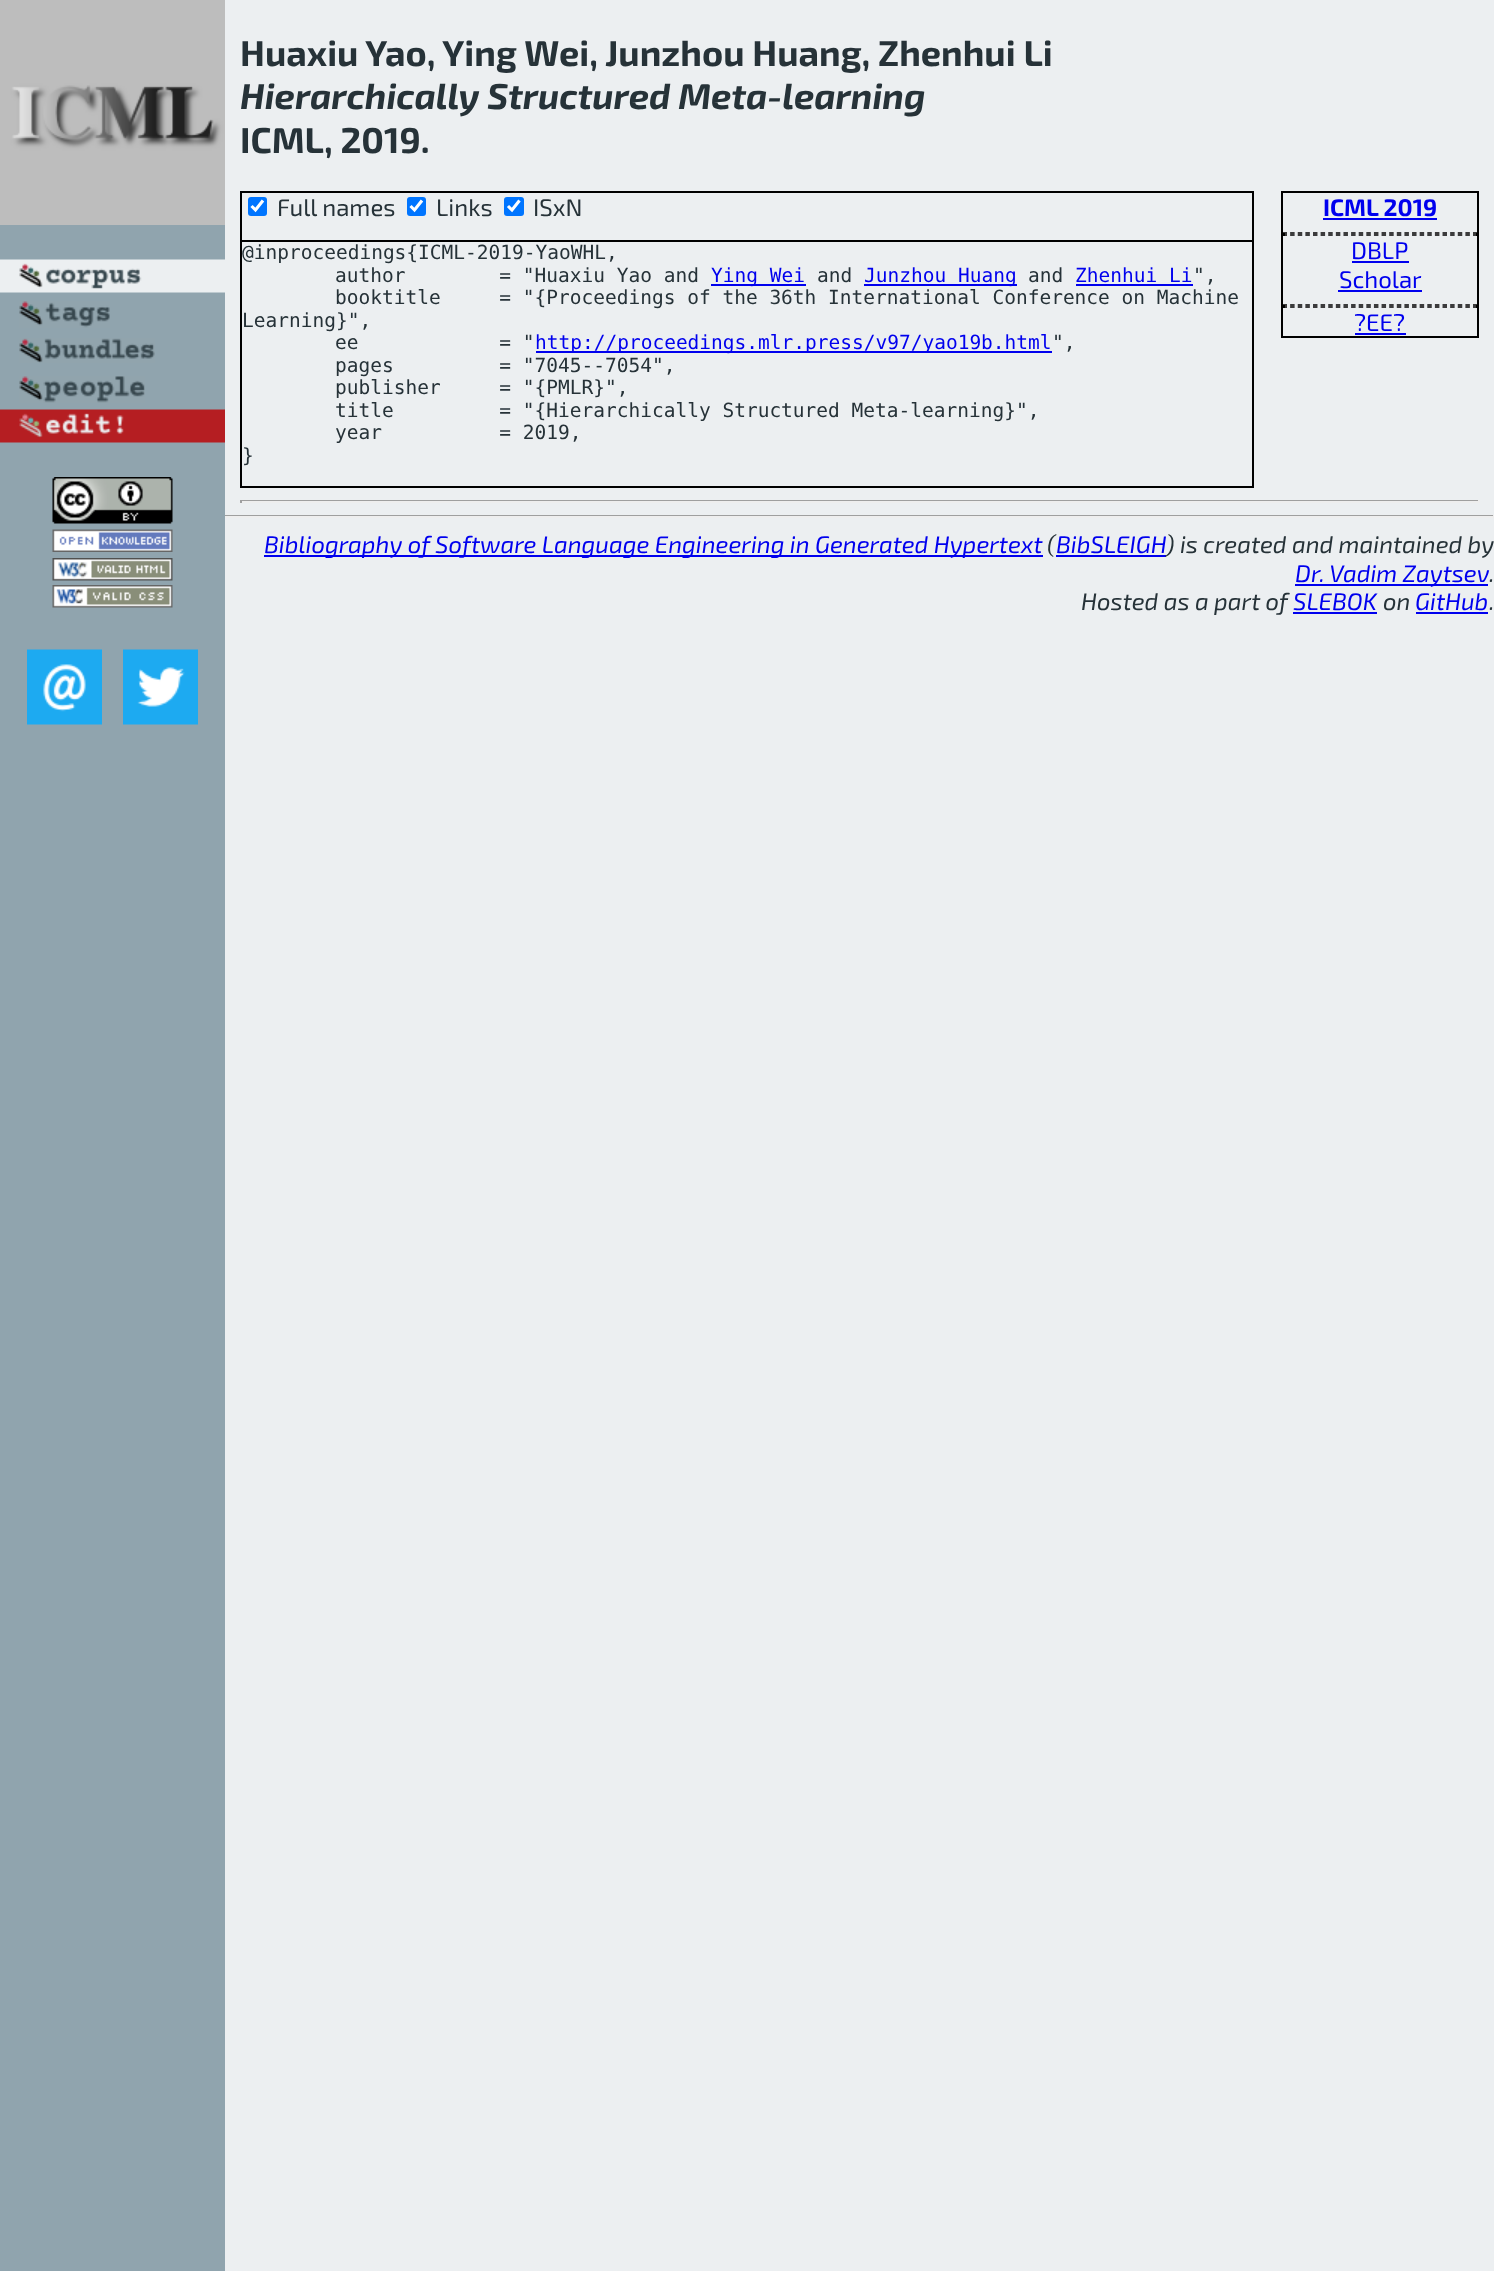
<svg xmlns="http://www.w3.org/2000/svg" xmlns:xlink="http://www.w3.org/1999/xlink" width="1494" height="2271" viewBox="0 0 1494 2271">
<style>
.cls-1{font:bold 36px 'Exo 2';fill:#263238}
.cls-2{font:italic bold 36px 'Exo 2';fill:#263238}
.cls-3{font:24px 'Exo 2';fill:#263238}
.cls-4{font:19.5px DejaVu Sans Mono;fill:#263238}
.cls-5{font:19.5px DejaVu Sans Mono;fill:#0000ee}
.cls-6{font:bold 24px 'Exo 2';fill:#0000ee}
.cls-7{font:24px 'Exo 2';fill:#0000ee}
.cls-8{font:italic 24px 'Exo 2';fill:#0000ee}
.cls-9{font:italic 24px 'Exo 2';fill:#263238}
</style>
<rect width="100%" height="100%" fill="#eceff1"/>
<rect fill="#90a4ae" x="0" y="225" width="225" height="2046"/>
<image xlink:href="image0.png" x="0" y="0" width="225" height="225"/>
<image xlink:href="image1.png" x="0" y="259" width="225" height="34"/>
<image xlink:href="image2.png" x="19" y="301" width="91" height="27"/>
<image xlink:href="image3.png" x="19" y="338" width="136" height="25"/>
<image xlink:href="image4.png" x="19" y="376" width="126" height="27"/>
<image xlink:href="image5.png" x="0" y="409" width="225" height="34"/>
<image xlink:href="image6.png" x="52" y="477" width="121" height="47"/>
<image xlink:href="image7.png" x="52" y="529" width="121" height="23"/>
<image xlink:href="image8.png" x="52" y="558" width="121" height="23"/>
<image xlink:href="image9.png" x="52" y="585" width="121" height="23"/>
<image xlink:href="image10.png" x="27" y="649" width="75" height="76"/>
<image xlink:href="image11.png" x="123" y="649" width="75" height="76"/>
<rect fill="none" stroke="#000000" stroke-width="2" x="241" y="192" width="1012" height="295"/>
<rect fill="#0075ff" x="248" y="197" width="19" height="19" rx="3"/>
<path fill="none" stroke="#ffffff" stroke-width="3.1" d="M251.5 206L255.5 210L263 200.5"/>
<rect fill="#0075ff" x="407" y="197" width="19" height="19" rx="3"/>
<path fill="none" stroke="#ffffff" stroke-width="3.1" d="M410.5 206L414.5 210L422 200.5"/>
<rect fill="#0075ff" x="504" y="197" width="20" height="19" rx="3"/>
<path fill="none" stroke="#ffffff" stroke-width="3.1" d="M508 206L512 210L519.5 200.5"/>
<rect fill="#000000" x="242" y="240" width="1011" height="2"/>
<rect fill="#0000ee" x="711" y="284" width="95" height="2"/>
<rect fill="#0000ee" x="864" y="284" width="153" height="2"/>
<rect fill="#0000ee" x="1076" y="284" width="117" height="2"/>
<rect fill="#0000ee" x="536" y="351" width="516" height="2"/>
<rect fill="none" stroke="#000000" stroke-width="2" x="1282" y="192" width="196" height="145"/>
<rect fill="#0000ee" x="1323" y="218" width="114" height="2"/>
<path fill="none" stroke="#000000" stroke-width="1.5" stroke-dasharray="4.5 3.12" d="M1282.5 233H1477.5"/>
<rect fill="#000000" x="1476" y="233" width="1" height="3"/>
<path fill="none" stroke="#000000" stroke-width="1.5" stroke-dasharray="4.5 3.12" d="M1282.5 235H1477.5"/>
<rect fill="#000000" x="1283" y="233" width="2" height="3"/>
<rect fill="#0000ee" x="1352" y="261" width="57" height="2"/>
<rect fill="#0000ee" x="1338" y="290" width="84" height="2"/>
<path fill="none" stroke="#000000" stroke-width="1.5" stroke-dasharray="4.5 3.12" d="M1282.5 305H1477.5"/>
<rect fill="#000000" x="1476" y="305" width="1" height="3"/>
<path fill="none" stroke="#000000" stroke-width="1.5" stroke-dasharray="4.5 3.12" d="M1282.5 307H1477.5"/>
<rect fill="#000000" x="1283" y="305" width="2" height="3"/>
<rect fill="#0000ee" x="1355" y="333" width="51" height="2"/>
<rect fill="#9f9f9f" x="240" y="500" width="1239" height="1"/>
<rect fill="#eeeeee" x="1478" y="500" width="2" height="3"/>
<rect fill="#eeeeee" x="240" y="501" width="1239" height="2"/>
<rect fill="#9f9f9f" x="240" y="500" width="2" height="3"/>
<rect fill="#9f9f9f" x="225" y="515" width="1269" height="1"/>
<rect fill="#eeeeee" x="1493" y="515" width="1" height="3"/>
<rect fill="#eeeeee" x="225" y="516" width="1269" height="2"/>
<rect fill="#0000ee" x="264" y="555" width="779" height="2"/>
<rect fill="#0000ee" x="1295" y="584" width="193" height="2"/>
<rect fill="#0000ee" x="1293" y="612" width="84" height="2"/>
<rect fill="#0000ee" x="1416" y="612" width="72" height="2"/>
<text class="cls-1" x="240" y="66">Huaxiu Yao, Ying Wei, Junzhou Huang, Zhenhui Li</text>
<text class="cls-2" x="240" y="109">Hierarchically Structured Meta-learning</text>
<text class="cls-1" x="240" y="153">ICML, 2019.</text>
<text class="cls-3" x="277" y="216">Full names</text>
<text class="cls-3" x="436" y="216">Links</text>
<text class="cls-3" x="533" y="216">ISxN</text>
<text class="cls-4" x="242" y="259">@inproceedings{ICML-2019-YaoWHL,</text>
<text class="cls-4" xml:space="preserve" x="335" y="282">author        = "Huaxiu Yao and</text>
<text class="cls-5" x="711" y="282">Ying Wei</text>
<text class="cls-4" x="817" y="282">and</text>
<text class="cls-5" x="864" y="282">Junzhou Huang</text>
<text class="cls-4" x="1028" y="282">and</text>
<text class="cls-5" x="1075" y="282">Zhenhui Li</text>
<text class="cls-4" x="1193" y="282">",</text>
<text class="cls-4" xml:space="preserve" x="335" y="304">booktitle     = "{Proceedings of the 36th International Conference on Machine</text>
<text class="cls-4" x="242" y="327">Learning}",</text>
<text class="cls-4" xml:space="preserve" x="335" y="349">ee            = "</text>
<text class="cls-5" x="535" y="349">http://proceedings.mlr.press/v97/yao19b.html</text>
<text class="cls-4" x="1052" y="349">",</text>
<text class="cls-4" xml:space="preserve"><tspan x="335" y="372">pages         = "7045--7054",</tspan><tspan x="335" y="394">publisher     = "{PMLR}",</tspan><tspan x="335" y="417">title         = "{Hierarchically Structured Meta-learning}",</tspan><tspan x="335" y="439">year          = 2019,</tspan></text>
<text class="cls-4" x="242" y="462">}</text>
<text class="cls-6" x="1323" y="216">ICML 2019</text>
<text class="cls-7" x="1351" y="259">DBLP</text>
<text class="cls-7" x="1339" y="288">Scholar</text>
<text class="cls-7" x="1354" y="331">?EE?</text>
<text class="cls-8" x="264" y="553">Bibliography of Software Language Engineering in Generated Hypertext</text>
<text class="cls-9" x="1047" y="553">(</text>
<text class="cls-8" x="1056" y="553">BibSLEIGH</text>
<rect fill="#0000ee" x="1056" y="555" width="110" height="2"/>
<text class="cls-9" x="1166" y="553">) is created and maintained by</text>
<text class="cls-8" x="1295" y="582">Dr. Vadim Zaytsev</text>
<text class="cls-9" x="1489" y="582">.</text>
<text class="cls-9" x="1081" y="610">Hosted as a part of</text>
<text class="cls-8" x="1293" y="610">SLEBOK</text>
<text class="cls-9" x="1383" y="610">on</text>
<text class="cls-8" x="1415" y="610">GitHub</text>
<text class="cls-9" x="1489" y="610">.</text>
</svg>
